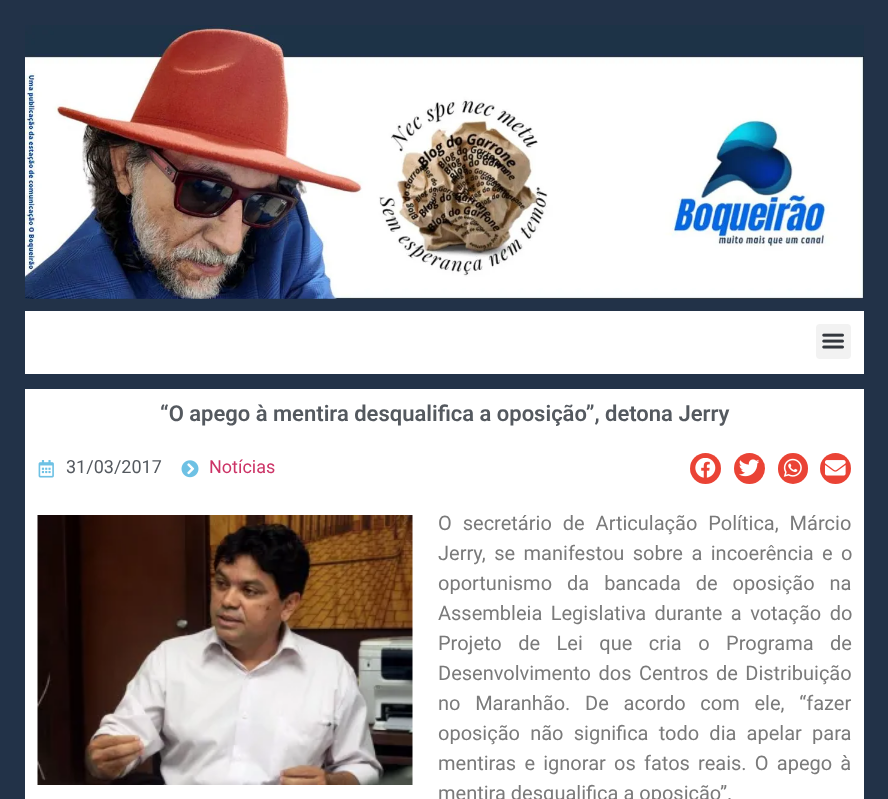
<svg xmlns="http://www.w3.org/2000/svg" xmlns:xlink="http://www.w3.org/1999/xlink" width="888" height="799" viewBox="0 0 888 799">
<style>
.cls-1{font:600 22px Roboto;fill:#54595f}
.cls-2{font:18px Roboto;fill:#54595f}
.cls-3{font:18px Roboto;fill:#cc3366}
.cls-4{font:20px Roboto;fill:#7a7a7a}
</style>
<rect width="100%" height="100%" fill="#223248"/>
<image xlink:href="image0.png" x="25" y="25" width="839" height="274"/>
<rect fill="#ffffff" x="25" y="311" width="839" height="63"/>
<rect fill="#f2f2f2" x="816" y="324" width="35" height="35" rx="4"/>
<image xlink:href="image1.png" x="822" y="333" width="22" height="16"/>
<rect fill="#ffffff" x="25" y="389" width="839" height="410"/>
<image xlink:href="image2.png" x="38" y="460" width="16" height="18"/>
<image xlink:href="image3.png" x="181" y="460" width="18" height="18"/>
<circle fill="#ea4335" cx="705.5" cy="468.5" r="15.5"/>
<image xlink:href="image4.png" x="695" y="458" width="21" height="20"/>
<circle fill="#ea4335" cx="749.5" cy="468.5" r="15.5"/>
<image xlink:href="image5.png" x="739" y="459" width="20" height="18"/>
<rect fill="#ea4335" x="778" y="453" width="30" height="31" rx="15"/>
<image xlink:href="image6.png" x="783" y="458" width="19" height="19"/>
<circle fill="#ea4335" cx="835.5" cy="468.5" r="15.5"/>
<image xlink:href="image7.png" x="825" y="460" width="21" height="16"/>
<image xlink:href="image8.png" x="37" y="515" width="376" height="270"/>
<text class="cls-1" x="160" y="421">“O apego à mentira desqualifica a oposição”, detona Jerry</text>
<text class="cls-2" x="66" y="473">31/03/2017</text>
<text class="cls-3" x="209" y="473">Notícias</text>
<text class="cls-4"><tspan x="438" y="530" word-spacing="6">O secretário de Articulação Política, Márcio</tspan><tspan x="438" y="560" word-spacing="3.5">Jerry, se manifestou sobre a incoerência e o</tspan><tspan x="438" y="590" word-spacing="10">oportunismo da bancada de oposição na</tspan><tspan x="438" y="620" word-spacing="3.5">Assembleia Legislativa durante a votação do</tspan><tspan x="438" y="650" word-spacing="11.5">Projeto de Lei que cria o Programa de</tspan><tspan x="438" y="680" word-spacing="2.5">Desenvolvimento dos Centros de Distribuição</tspan><tspan x="438" y="710" word-spacing="9.75">no Maranhão. De acordo com ele, “fazer</tspan><tspan x="438" y="740" word-spacing="5.25">oposição não significa todo dia apelar para</tspan><tspan x="438" y="770" word-spacing="3.25">mentiras e ignorar os fatos reais. O apego à</tspan><tspan x="438" y="800">mentira desqualifica a oposição”.</tspan></text>
</svg>
